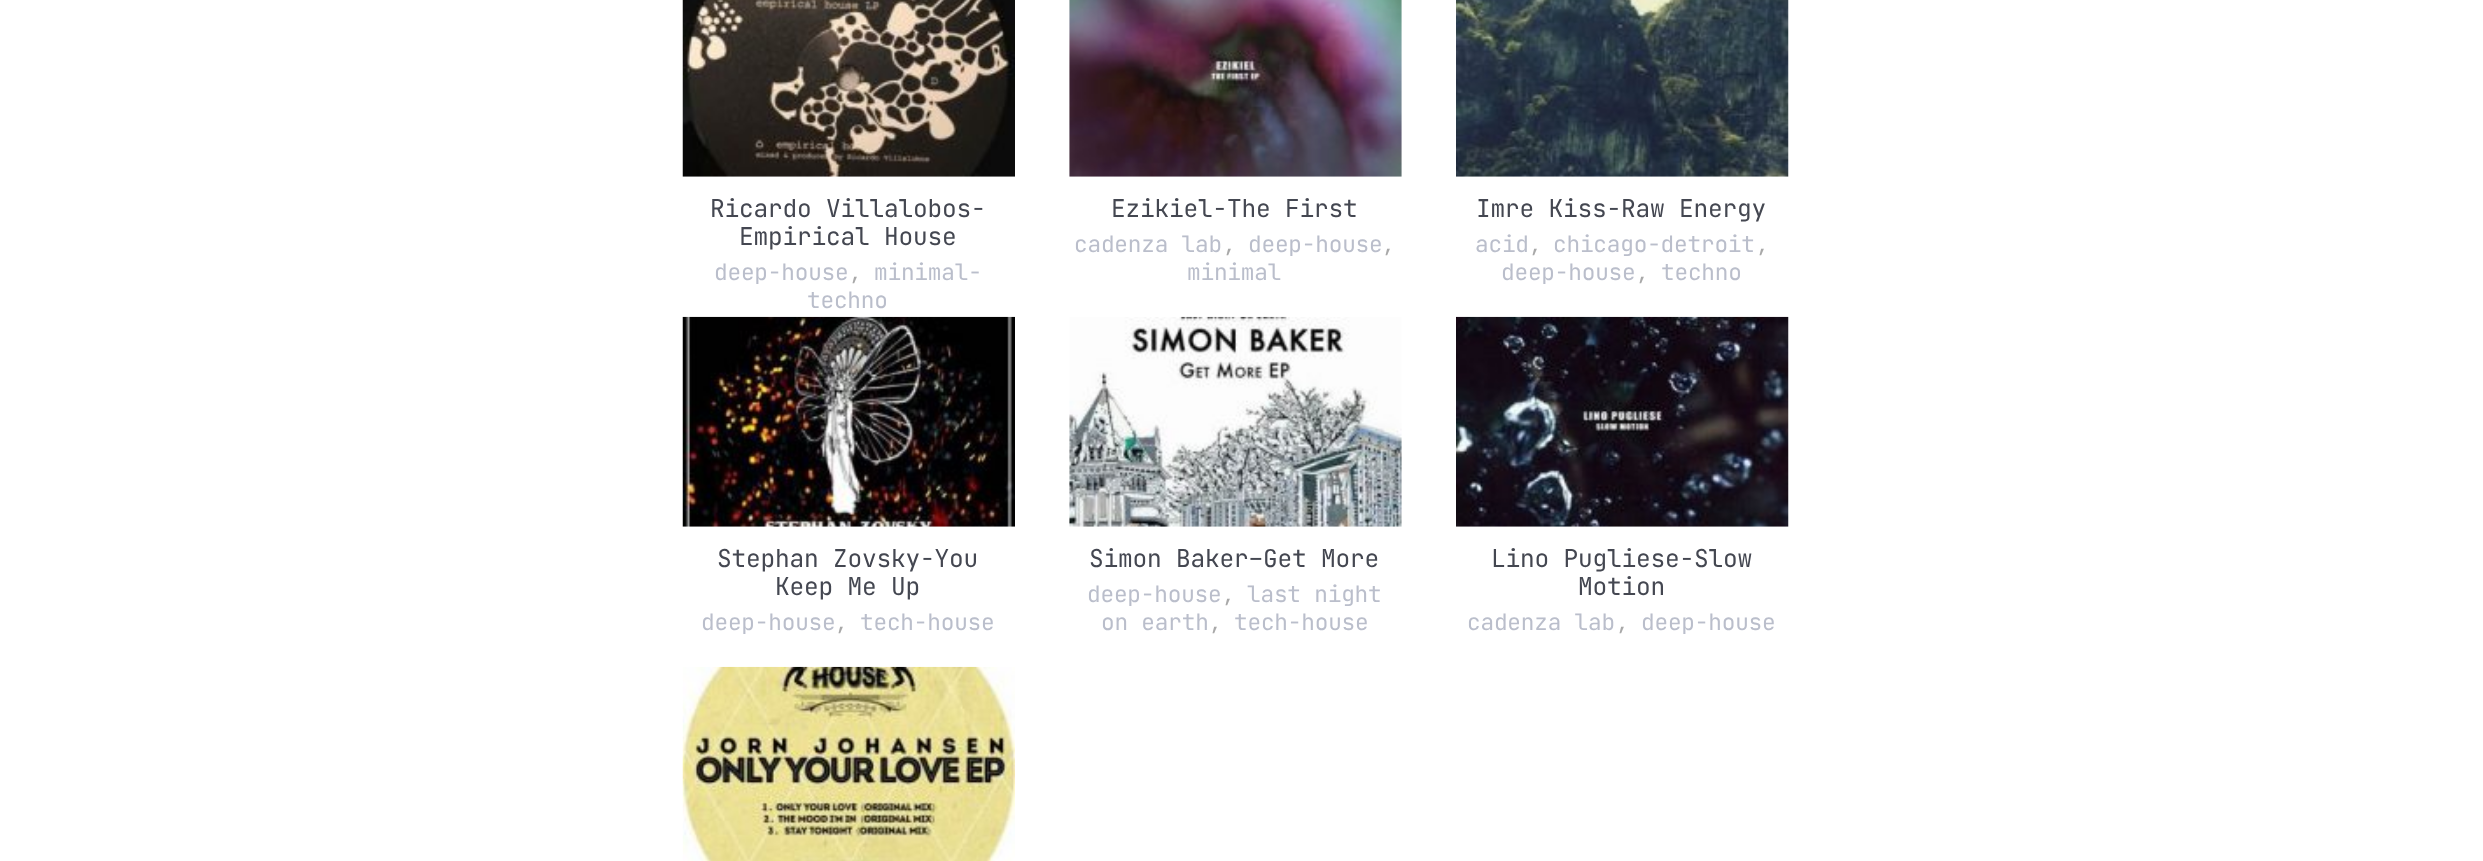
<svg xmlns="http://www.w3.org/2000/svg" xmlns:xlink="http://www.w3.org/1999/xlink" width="2483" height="861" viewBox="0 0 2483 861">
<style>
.cls-1{font:24.5px JetBrains Mono;letter-spacing:-0.2px;fill:#444751}
.cls-2{font:22.75px JetBrains Mono;letter-spacing:-0.2px;fill:#babecb}
.cls-3{font:21px JetBrains Mono;letter-spacing:-0.2px;fill:#a9a9a9}
</style>
<rect width="100%" height="100%" fill="#ffffff"/>
<image xlink:href="image0.png" x="682" y="0" width="333" height="177"/>
<image xlink:href="image1.png" x="1069" y="0" width="333" height="177"/>
<image xlink:href="image2.png" x="1456" y="0" width="333" height="177"/>
<image xlink:href="image3.png" x="682" y="316" width="333" height="211"/>
<image xlink:href="image4.png" x="1069" y="316" width="333" height="211"/>
<image xlink:href="image5.png" x="1456" y="316" width="333" height="211"/>
<image xlink:href="image6.png" x="682" y="666" width="333" height="195"/>
<text class="cls-1" x="710" y="217">Ricardo Villalobos-</text>
<text class="cls-1" x="739" y="245">Empirical House</text>
<text class="cls-2" x="714" y="280">deep-house</text>
<text class="cls-3" x="849" y="280">,</text>
<text class="cls-2" x="874" y="280">minimal-</text>
<text class="cls-2" x="807" y="308">techno</text>
<text class="cls-1" x="1111" y="217">Ezikiel-The First</text>
<text class="cls-2" x="1074" y="252">cadenza lab</text>
<text class="cls-3" x="1223" y="252">,</text>
<text class="cls-2" x="1248" y="252">deep-house</text>
<text class="cls-3" x="1382" y="252">,</text>
<text class="cls-2" x="1187" y="280">minimal</text>
<text class="cls-1" x="1476" y="217">Imre Kiss-Raw Energy</text>
<text class="cls-2" x="1475" y="252">acid</text>
<text class="cls-3" x="1529" y="252">,</text>
<text class="cls-2" x="1553" y="252">chicago-detroit</text>
<text class="cls-3" x="1756" y="252">,</text>
<text class="cls-2" x="1501" y="280">deep-house</text>
<text class="cls-3" x="1636" y="280">,</text>
<text class="cls-2" x="1661" y="280">techno</text>
<text class="cls-1" x="717" y="567">Stephan Zovsky-You</text>
<text class="cls-1" x="775" y="595">Keep Me Up</text>
<text class="cls-2" x="701" y="630">deep-house</text>
<text class="cls-3" x="835" y="630">,</text>
<text class="cls-2" x="860" y="630">tech-house</text>
<text class="cls-1" x="1089" y="567">Simon Baker–Get More</text>
<text class="cls-2" x="1087" y="602">deep-house</text>
<text class="cls-3" x="1222" y="602">,</text>
<text class="cls-2" x="1247" y="602">last night</text>
<text class="cls-2" x="1101" y="630">on earth</text>
<text class="cls-3" x="1209" y="630">,</text>
<text class="cls-2" x="1234" y="630">tech-house</text>
<text class="cls-1" x="1491" y="567">Lino Pugliese-Slow</text>
<text class="cls-1" x="1578" y="595">Motion</text>
<text class="cls-2" x="1467" y="630">cadenza lab</text>
<text class="cls-3" x="1616" y="630">,</text>
<text class="cls-2" x="1641" y="630">deep-house</text>
</svg>
